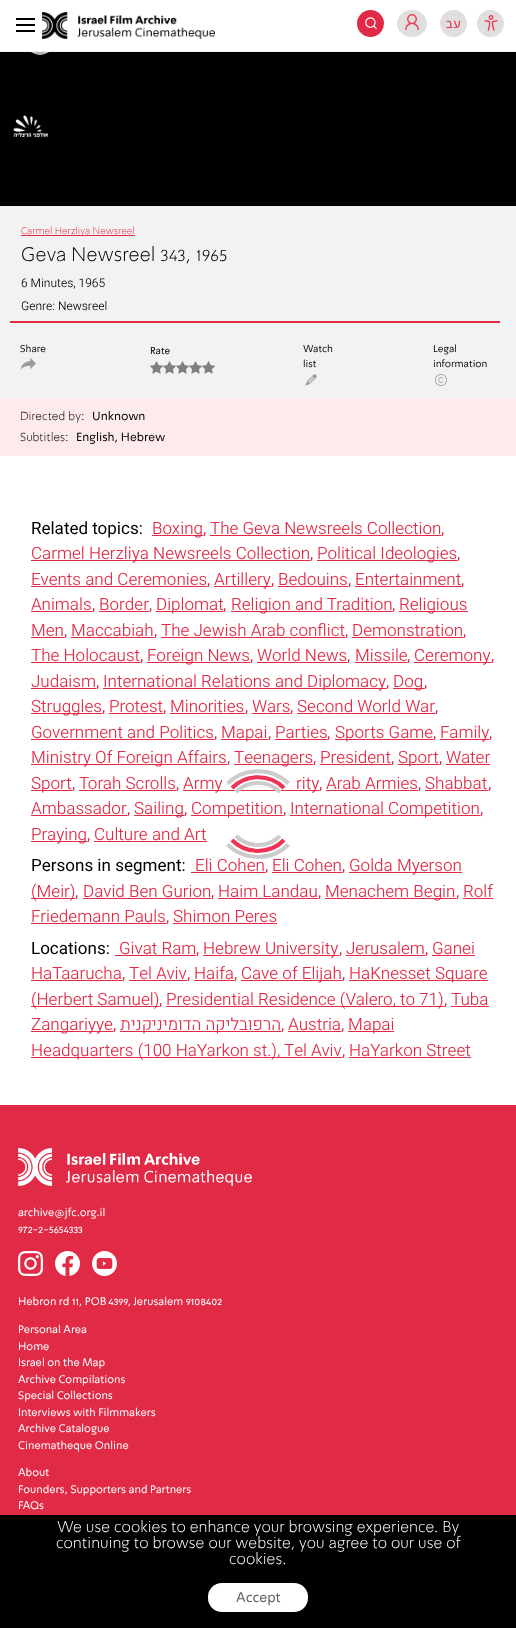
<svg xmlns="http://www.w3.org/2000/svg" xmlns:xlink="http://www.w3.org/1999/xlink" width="516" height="1628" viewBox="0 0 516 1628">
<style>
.cls-1{font:14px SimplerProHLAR;direction:rtl;fill:#ed3550}
.cls-2{font:300 10px SimplerProHLAR;fill:#e12a45}
.cls-3{font:300 20px SimplerProHLAR;fill:#000000}
.cls-4{font:300 12px Heebo;fill:#000000}
.cls-5{font:10px SimplerProHLAR;fill:#0e0b0c}
.cls-6{font:10px SimplerProHLAR;fill:#000000}
.cls-7{font:300 12px SimplerProHLAR;fill:#000000}
.cls-8{font:12px SimplerProHLAR;fill:#000000}
.cls-9{font:17px Heebo;fill:#000000}
.cls-10{font:300 17px Heebo;fill:#e12a45}
.cls-11{font:16px Heebo;fill:#e12a45}
.cls-12{font:300 17px Heebo;direction:rtl;fill:#e12a45}
.cls-13{font:11px SimplerProHLAR;fill:#ffffff}
.cls-14{font:300 16px SimplerProHLAR;fill:#ffffff}
.cls-15{font:14px SimplerProHLAR;fill:#626061}
</style>
<rect width="100%" height="100%" fill="#ffffff"/>
<rect fill="#000000" x="0" y="52" width="516" height="154"/>
<circle fill="#b5b5b5" stroke="#000000" stroke-width="2" cx="40" cy="40" r="16"/>
<rect fill="#ffffff" x="23" y="23" width="34" height="28"/>
<rect fill="#f3f3f3" x="0" y="51" width="516" height="1"/>
<rect fill="#000000" x="16" y="18" width="19" height="2"/>
<rect fill="#000000" x="16" y="24" width="19" height="2"/>
<rect fill="#000000" x="16" y="30" width="19" height="2"/>
<image xlink:href="image0.png" x="42" y="12" width="173" height="27"/>
<circle fill="#e12a45" cx="370.5" cy="23.5" r="13.5"/>
<image xlink:href="image1.png" x="365" y="17" width="12" height="12"/>
<ellipse fill="#dfdfdf" cx="412" cy="23.5" rx="15" ry="13.5"/>
<image xlink:href="image2.png" x="405" y="14" width="14" height="16"/>
<circle fill="#dfdfdf" cx="453.5" cy="23.5" r="13.5"/>
<circle fill="#dfdfdf" cx="490.5" cy="23.5" r="13.5"/>
<image xlink:href="image3.png" x="484" y="15" width="14" height="16"/>
<image xlink:href="image4.png" x="13" y="115" width="36" height="22"/>
<rect fill="#f2f2f2" x="0" y="206" width="516" height="192"/>
<rect fill="#e12a45" x="10" y="321" width="490" height="2"/>
<rect fill="#e12a45" x="21" y="235" width="114" height="1"/>
<image xlink:href="image5.png" x="20" y="358" width="16" height="12"/>
<image xlink:href="image6.png" x="150" y="361" width="13" height="13"/>
<image xlink:href="image6.png" x="163" y="361" width="13" height="13"/>
<image xlink:href="image6.png" x="176" y="361" width="13" height="13"/>
<image xlink:href="image6.png" x="189" y="361" width="13" height="13"/>
<image xlink:href="image6.png" x="202" y="361" width="13" height="13"/>
<image xlink:href="image7.png" x="305" y="374" width="12" height="12"/>
<image xlink:href="image8.png" x="435" y="374" width="12" height="12"/>
<rect fill="#fdeaed" x="0" y="398" width="516" height="58"/>
<rect fill="#e12a45" x="152" y="535" width="51" height="1"/>
<rect fill="#e12a45" x="210" y="535" width="231" height="1"/>
<rect fill="#e12a45" x="31" y="560" width="279" height="1"/>
<rect fill="#e12a45" x="317" y="560" width="140" height="1"/>
<rect fill="#e12a45" x="31" y="586" width="176" height="1"/>
<rect fill="#e12a45" x="214" y="586" width="57" height="1"/>
<rect fill="#e12a45" x="278" y="586" width="70" height="1"/>
<rect fill="#e12a45" x="355" y="586" width="106" height="1"/>
<rect fill="#e12a45" x="31" y="611" width="61" height="1"/>
<rect fill="#e12a45" x="99" y="611" width="50" height="1"/>
<rect fill="#e12a45" x="156" y="611" width="67" height="1"/>
<rect fill="#e12a45" x="231" y="611" width="161" height="1"/>
<rect fill="#e12a45" x="399" y="611" width="69" height="1"/>
<rect fill="#e12a45" x="31" y="637" width="33" height="1"/>
<rect fill="#e12a45" x="71" y="637" width="83" height="1"/>
<rect fill="#e12a45" x="161" y="637" width="184" height="1"/>
<rect fill="#e12a45" x="352" y="637" width="111" height="1"/>
<rect fill="#e12a45" x="31" y="662" width="109" height="1"/>
<rect fill="#e12a45" x="147" y="662" width="103" height="1"/>
<rect fill="#e12a45" x="257" y="662" width="90" height="1"/>
<rect fill="#e12a45" x="355" y="662" width="52" height="1"/>
<rect fill="#e12a45" x="414" y="662" width="77" height="1"/>
<rect fill="#e12a45" x="31" y="688" width="65" height="1"/>
<rect fill="#e12a45" x="103" y="688" width="283" height="1"/>
<rect fill="#e12a45" x="393" y="688" width="31" height="1"/>
<rect fill="#e12a45" x="31" y="713" width="71" height="1"/>
<rect fill="#e12a45" x="109" y="713" width="54" height="1"/>
<rect fill="#e12a45" x="170" y="713" width="75" height="1"/>
<rect fill="#e12a45" x="252" y="713" width="38" height="1"/>
<rect fill="#e12a45" x="297" y="713" width="138" height="1"/>
<rect fill="#e12a45" x="31" y="739" width="183" height="1"/>
<rect fill="#e12a45" x="221" y="739" width="47" height="1"/>
<rect fill="#e12a45" x="275" y="739" width="52" height="1"/>
<rect fill="#e12a45" x="335" y="739" width="98" height="1"/>
<rect fill="#e12a45" x="440" y="739" width="49" height="1"/>
<rect fill="#e12a45" x="31" y="764" width="196" height="1"/>
<rect fill="#e12a45" x="234" y="764" width="79" height="1"/>
<rect fill="#e12a45" x="320" y="764" width="71" height="1"/>
<rect fill="#e12a45" x="398" y="764" width="41" height="1"/>
<rect fill="#e12a45" x="446" y="764" width="44" height="1"/>
<rect fill="#e12a45" x="31" y="790" width="41" height="1"/>
<rect fill="#e12a45" x="79" y="790" width="97" height="1"/>
<rect fill="#e12a45" x="183" y="790" width="136" height="1"/>
<rect fill="#e12a45" x="326" y="790" width="92" height="1"/>
<rect fill="#e12a45" x="425" y="790" width="63" height="1"/>
<rect fill="#e12a45" x="31" y="815" width="96" height="1"/>
<rect fill="#e12a45" x="134" y="815" width="50" height="1"/>
<rect fill="#e12a45" x="191" y="815" width="92" height="1"/>
<rect fill="#e12a45" x="290" y="815" width="190" height="1"/>
<rect fill="#e12a45" x="31" y="841" width="56" height="1"/>
<rect fill="#e12a45" x="94" y="841" width="113" height="1"/>
<rect fill="#e12a45" x="191" y="872" width="74" height="1"/>
<rect fill="#e12a45" x="272" y="872" width="70" height="1"/>
<rect fill="#e12a45" x="349" y="872" width="113" height="1"/>
<rect fill="#e12a45" x="31" y="898" width="44" height="1"/>
<rect fill="#e12a45" x="83" y="898" width="128" height="1"/>
<rect fill="#e12a45" x="218" y="898" width="100" height="1"/>
<rect fill="#e12a45" x="325" y="898" width="131" height="1"/>
<rect fill="#e12a45" x="463" y="898" width="30" height="1"/>
<rect fill="#e12a45" x="31" y="923" width="135" height="1"/>
<rect fill="#e12a45" x="173" y="923" width="104" height="1"/>
<rect fill="#e12a45" x="115" y="955" width="81" height="1"/>
<rect fill="#e12a45" x="203" y="955" width="136" height="1"/>
<rect fill="#e12a45" x="346" y="955" width="79" height="1"/>
<rect fill="#e12a45" x="432" y="955" width="43" height="1"/>
<rect fill="#e12a45" x="31" y="980" width="91" height="1"/>
<rect fill="#e12a45" x="129" y="980" width="58" height="1"/>
<rect fill="#e12a45" x="194" y="980" width="40" height="1"/>
<rect fill="#e12a45" x="241" y="980" width="101" height="1"/>
<rect fill="#e12a45" x="349" y="980" width="139" height="1"/>
<rect fill="#e12a45" x="31" y="1006" width="128" height="1"/>
<rect fill="#e12a45" x="166" y="1006" width="278" height="1"/>
<rect fill="#e12a45" x="451" y="1006" width="38" height="1"/>
<rect fill="#e12a45" x="31" y="1031" width="82" height="1"/>
<rect fill="#e12a45" x="120" y="1031" width="161" height="1"/>
<rect fill="#e12a45" x="288" y="1031" width="53" height="1"/>
<rect fill="#e12a45" x="348" y="1031" width="46" height="1"/>
<rect fill="#e12a45" x="31" y="1057" width="311" height="1"/>
<rect fill="#e12a45" x="349" y="1057" width="122" height="1"/>
<path fill="none" stroke="#cccccc" stroke-width="4" d="M227.5 783.5C244 767 272 767 288.5 783.5"/>
<path fill="none" stroke="#f03355" stroke-width="4" d="M232 788C246 773.5 270 773.5 284 788"/>
<path fill="none" stroke="#cccccc" stroke-width="4" d="M236 792C248 780 268 780 280 792"/>
<rect fill="#e12a45" x="0" y="1105" width="516" height="410"/>
<image xlink:href="image9.png" x="18" y="1148" width="234" height="38"/>
<image xlink:href="image10.png" x="18" y="1251" width="25" height="25"/>
<image xlink:href="image11.png" x="55" y="1251" width="25" height="25"/>
<image xlink:href="image12.png" x="92" y="1251" width="25" height="25"/>
<rect fill="#000000" x="0" y="1515" width="516" height="113"/>
<rect fill="#ffffff" x="208" y="1583" width="100" height="29" rx="14"/>
<text class="cls-1" x="461" y="28">עב</text>
<text class="cls-2" x="21" y="234">Carmel Herzliya Newsreel</text>
<text class="cls-3" x="21" y="261">Geva Newsreel 343, 1965</text>
<text class="cls-4"><tspan x="21" y="287">6 Minutes, 1965</tspan><tspan x="21" y="310">Genre: Newsreel</tspan></text>
<text class="cls-5" x="20" y="352">Share</text>
<text class="cls-6" x="150" y="354">Rate</text>
<text class="cls-5"><tspan x="303" y="352">Watch</tspan><tspan x="303" y="367">list</tspan></text>
<text class="cls-5"><tspan x="433" y="352">Legal</tspan><tspan x="433" y="367">information</tspan></text>
<text class="cls-7" x="20" y="420">Directed by:</text>
<text class="cls-8" x="92" y="420">Unknown</text>
<text class="cls-7" x="20" y="441">Subtitles:</text>
<text class="cls-8" x="76" y="441">English, Hebrew</text>
<text class="cls-9" x="31" y="534">Related topics:</text>
<text class="cls-10" x="152" y="534">Boxing</text>
<text class="cls-11" x="203" y="534">,</text>
<text class="cls-10" x="210" y="534">The Geva Newsreels Collection</text>
<text class="cls-11" x="441" y="534">,</text>
<text class="cls-10" x="31" y="559">Carmel Herzliya Newsreels Collection</text>
<text class="cls-11" x="310" y="559">,</text>
<text class="cls-10" x="317" y="559">Political Ideologies</text>
<text class="cls-11" x="457" y="559">,</text>
<text class="cls-10" x="31" y="585">Events and Ceremonies</text>
<text class="cls-11" x="207" y="585">,</text>
<text class="cls-10" x="214" y="585">Artillery</text>
<text class="cls-11" x="271" y="585">,</text>
<text class="cls-10" x="278" y="585">Bedouins</text>
<text class="cls-11" x="348" y="585">,</text>
<text class="cls-10" x="355" y="585">Entertainment</text>
<text class="cls-11" x="461" y="585">,</text>
<text class="cls-10" x="31" y="610">Animals</text>
<text class="cls-11" x="92" y="610">,</text>
<text class="cls-10" x="99" y="610">Border</text>
<text class="cls-11" x="149" y="610">,</text>
<text class="cls-10" x="156" y="610">Diplomat</text>
<text class="cls-11" x="223" y="610">,</text>
<text class="cls-10" x="231" y="610">Religion and Tradition</text>
<text class="cls-11" x="392" y="610">,</text>
<text class="cls-10" x="399" y="610">Religious</text>
<text class="cls-10" x="31" y="636">Men</text>
<text class="cls-11" x="64" y="636">,</text>
<text class="cls-10" x="71" y="636">Maccabiah</text>
<text class="cls-11" x="154" y="636">,</text>
<text class="cls-10" x="161" y="636">The Jewish Arab conflict</text>
<text class="cls-11" x="345" y="636">,</text>
<text class="cls-10" x="352" y="636">Demonstration</text>
<text class="cls-11" x="463" y="636">,</text>
<text class="cls-10" x="31" y="661">The Holocaust</text>
<text class="cls-11" x="140" y="661">,</text>
<text class="cls-10" x="147" y="661">Foreign News</text>
<text class="cls-11" x="250" y="661">,</text>
<text class="cls-10" x="257" y="661">World News</text>
<text class="cls-11" x="347" y="661">,</text>
<text class="cls-10" x="355" y="661">Missile</text>
<text class="cls-11" x="407" y="661">,</text>
<text class="cls-10" x="414" y="661">Ceremony</text>
<text class="cls-11" x="491" y="661">,</text>
<text class="cls-10" x="31" y="687">Judaism</text>
<text class="cls-11" x="96" y="687">,</text>
<text class="cls-10" x="103" y="687">International Relations and Diplomacy</text>
<text class="cls-11" x="386" y="687">,</text>
<text class="cls-10" x="393" y="687">Dog</text>
<text class="cls-11" x="424" y="687">,</text>
<text class="cls-10" x="31" y="712">Struggles</text>
<text class="cls-11" x="102" y="712">,</text>
<text class="cls-10" x="109" y="712">Protest</text>
<text class="cls-11" x="163" y="712">,</text>
<text class="cls-10" x="170" y="712">Minorities</text>
<text class="cls-11" x="245" y="712">,</text>
<text class="cls-10" x="252" y="712">Wars</text>
<text class="cls-11" x="290" y="712">,</text>
<text class="cls-10" x="297" y="712">Second World War</text>
<text class="cls-11" x="435" y="712">,</text>
<text class="cls-10" x="31" y="738">Government and Politics</text>
<text class="cls-11" x="214" y="738">,</text>
<text class="cls-10" x="221" y="738">Mapai</text>
<text class="cls-11" x="268" y="738">,</text>
<text class="cls-10" x="275" y="738">Parties</text>
<text class="cls-11" x="327" y="738">,</text>
<text class="cls-10" x="335" y="738">Sports Game</text>
<text class="cls-11" x="433" y="738">,</text>
<text class="cls-10" x="440" y="738">Family</text>
<text class="cls-11" x="489" y="738">,</text>
<text class="cls-10" x="31" y="763">Ministry Of Foreign Affairs</text>
<text class="cls-11" x="227" y="763">,</text>
<text class="cls-10" x="234" y="763">Teenagers</text>
<text class="cls-11" x="313" y="763">,</text>
<text class="cls-10" x="320" y="763">President</text>
<text class="cls-11" x="391" y="763">,</text>
<text class="cls-10" x="398" y="763">Sport</text>
<text class="cls-11" x="439" y="763">,</text>
<text class="cls-10" x="446" y="763">Water</text>
<text class="cls-10" x="31" y="789">Sport</text>
<text class="cls-11" x="72" y="789">,</text>
<text class="cls-10" x="79" y="789">Torah Scrolls</text>
<text class="cls-11" x="176" y="789">,</text>
<text class="cls-10" x="183" y="789">Army</text>
<text class="cls-10" x="296" y="789">rity</text>
<text class="cls-11" x="319" y="789">,</text>
<text class="cls-10" x="326" y="789">Arab Armies</text>
<text class="cls-11" x="418" y="789">,</text>
<text class="cls-10" x="425" y="789">Shabbat</text>
<text class="cls-11" x="488" y="789">,</text>
<text class="cls-10" x="31" y="814">Ambassador</text>
<text class="cls-11" x="127" y="814">,</text>
<text class="cls-10" x="134" y="814">Sailing</text>
<text class="cls-11" x="184" y="814">,</text>
<text class="cls-10" x="191" y="814">Competition</text>
<text class="cls-11" x="283" y="814">,</text>
<text class="cls-10" x="290" y="814">International Competition</text>
<text class="cls-11" x="480" y="814">,</text>
<text class="cls-10" x="31" y="840">Praying</text>
<text class="cls-11" x="87" y="840">,</text>
<text class="cls-10" x="94" y="840">Culture and Art</text>
<text class="cls-9" x="31" y="871">Persons in segment:</text>
<text class="cls-10" x="195" y="871">Eli Cohen</text>
<text class="cls-11" x="265" y="871">,</text>
<text class="cls-10" x="272" y="871">Eli Cohen</text>
<text class="cls-11" x="342" y="871">,</text>
<text class="cls-10" x="349" y="871">Golda Myerson</text>
<text class="cls-10" x="31" y="897">(Meir)</text>
<text class="cls-11" x="75" y="897">,</text>
<text class="cls-10" x="83" y="897">David Ben Gurion</text>
<text class="cls-11" x="211" y="897">,</text>
<text class="cls-10" x="218" y="897">Haim Landau</text>
<text class="cls-11" x="318" y="897">,</text>
<text class="cls-10" x="325" y="897">Menachem Begin</text>
<text class="cls-11" x="456" y="897">,</text>
<text class="cls-10" x="463" y="897">Rolf</text>
<text class="cls-10" x="31" y="922">Friedemann Pauls</text>
<text class="cls-11" x="166" y="922">,</text>
<text class="cls-10" x="173" y="922">Shimon Peres</text>
<text class="cls-9" x="31" y="954">Locations:</text>
<text class="cls-10" x="119" y="954">Givat Ram</text>
<text class="cls-11" x="196" y="954">,</text>
<text class="cls-10" x="203" y="954">Hebrew University</text>
<text class="cls-11" x="339" y="954">,</text>
<text class="cls-10" x="346" y="954">Jerusalem</text>
<text class="cls-11" x="425" y="954">,</text>
<text class="cls-10" x="432" y="954">Ganei</text>
<text class="cls-10" x="31" y="979">HaTaarucha</text>
<text class="cls-11" x="122" y="979">,</text>
<text class="cls-10" x="129" y="979">Tel Aviv</text>
<text class="cls-11" x="187" y="979">,</text>
<text class="cls-10" x="194" y="979">Haifa</text>
<text class="cls-11" x="234" y="979">,</text>
<text class="cls-10" x="241" y="979">Cave of Elijah</text>
<text class="cls-11" x="342" y="979">,</text>
<text class="cls-10" x="349" y="979">HaKnesset Square</text>
<text class="cls-10" x="31" y="1005">(Herbert Samuel)</text>
<text class="cls-11" x="159" y="1005">,</text>
<text class="cls-10" x="166" y="1005">Presidential Residence (Valero, to 71)</text>
<text class="cls-11" x="444" y="1005">,</text>
<text class="cls-10" x="451" y="1005">Tuba</text>
<text class="cls-10" x="31" y="1030">Zangariyye</text>
<text class="cls-11" x="113" y="1030">,</text>
<text class="cls-12" x="281" y="1030">הרפובליקה הדומיניקנית</text>
<text class="cls-11" x="281" y="1030">,</text>
<text class="cls-10" x="288" y="1030">Austria</text>
<text class="cls-11" x="341" y="1030">,</text>
<text class="cls-10" x="348" y="1030">Mapai</text>
<text class="cls-10" x="31" y="1056">Headquarters (100 HaYarkon st.), Tel Aviv</text>
<text class="cls-11" x="342" y="1056">,</text>
<text class="cls-10" x="349" y="1056">HaYarkon Street</text>
<path fill="none" stroke="#cccccc" stroke-width="4" d="M288.5 844.5C272 861 244 861 227.5 844.5"/>
<path fill="none" stroke="#f03355" stroke-width="4" d="M284 840C270 854.5 246 854.5 232 840"/>
<path fill="none" stroke="#cccccc" stroke-width="4" d="M280 836C268 848 248 848 236 836"/>
<text class="cls-13"><tspan x="18" y="1216">archive@jfc.org.il</tspan><tspan x="18" y="1233">972-2-5654333</tspan></text>
<text class="cls-13" x="18" y="1305">Hebron rd 11, POB 4399, Jerusalem 9108402</text>
<text class="cls-13"><tspan x="18" y="1333">Personal Area</tspan><tspan x="18" y="1350">Home</tspan><tspan x="18" y="1366">Israel on the Map</tspan><tspan x="18" y="1383">Archive Compilations</tspan><tspan x="18" y="1399">Special Collections</tspan><tspan x="18" y="1416">Interviews with Filmmakers</tspan><tspan x="18" y="1432">Archive Catalogue</tspan><tspan x="18" y="1449">Cinematheque Online</tspan></text>
<text class="cls-13"><tspan x="18" y="1476">About</tspan><tspan x="18" y="1493">Founders, Supporters and Partners</tspan><tspan x="18" y="1509">FAQs</tspan></text>
<text class="cls-14" x="57" y="1532">We use cookies to enhance your browsing experience. By</text>
<text class="cls-14" x="56" y="1548">continuing to browse our website, you agree to our use of</text>
<text class="cls-14" x="229" y="1564">cookies.</text>
<text class="cls-15" x="236" y="1602">Accept</text>
</svg>
